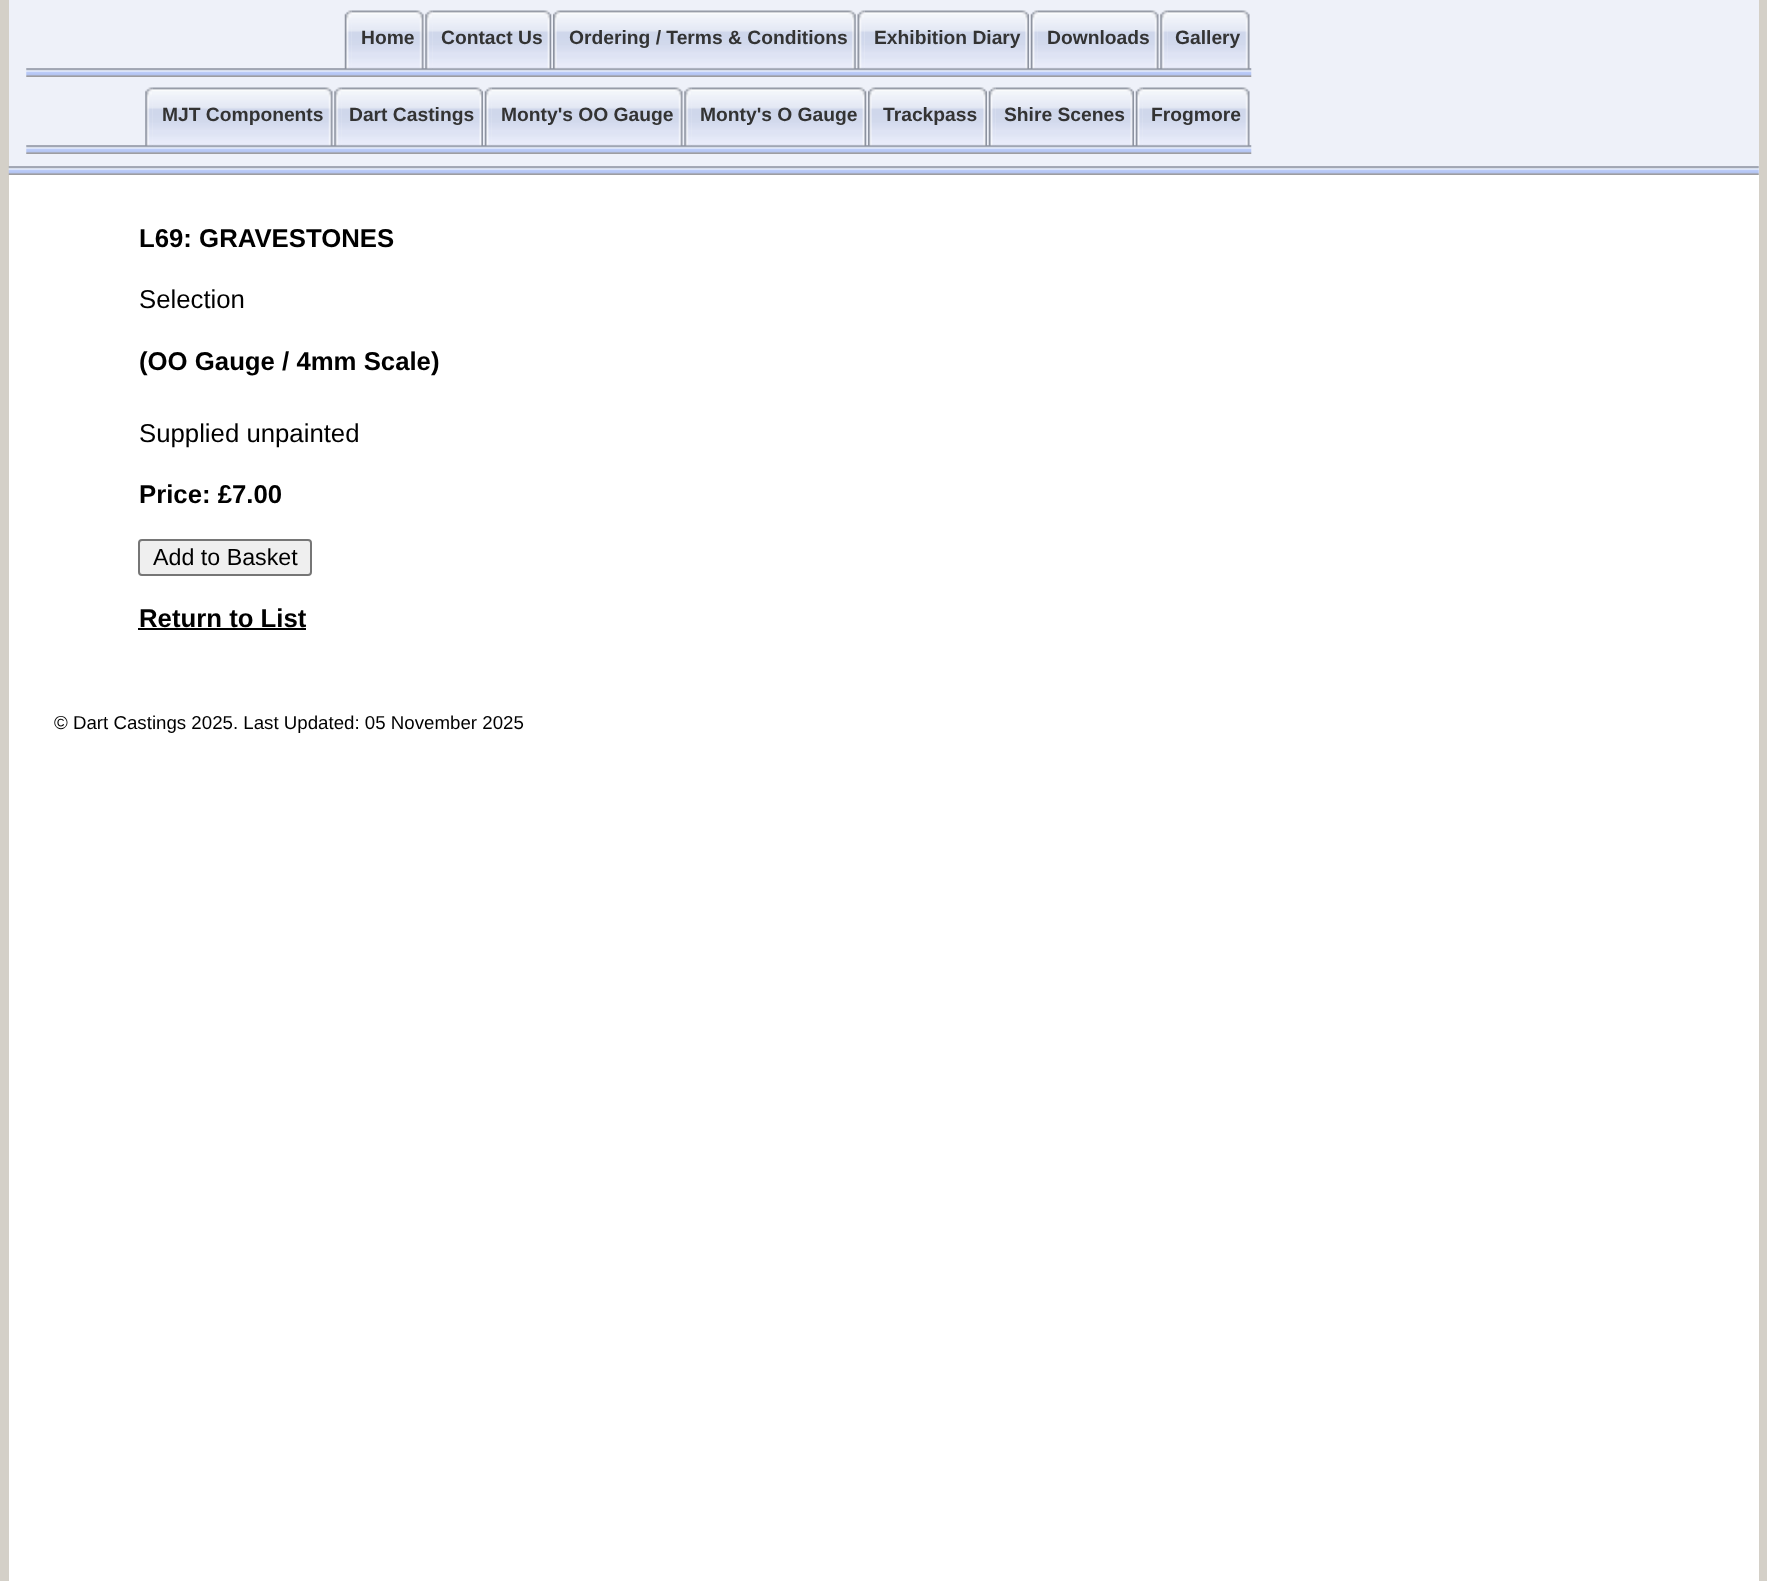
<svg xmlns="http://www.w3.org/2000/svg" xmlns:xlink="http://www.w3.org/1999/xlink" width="1767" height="1581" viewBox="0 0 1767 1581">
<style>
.cls-1{font:bold 19.25px Liberation Sans;fill:#333333}
.cls-2{font:bold 25.75px Liberation Sans;fill:#000000}
.cls-3{font:25.75px Liberation Sans;fill:#000000}
.cls-4{font:23.25px Liberation Sans;fill:#000000}
.cls-5{font:18.7px Liberation Sans;fill:#000000}
</style>
<rect width="100%" height="100%" fill="#d4d0c8"/>
<rect fill="#eef1f9" x="9" y="0" width="1750" height="175"/>
<image xlink:href="image0.png" x="8" y="166" width="1751" height="9"/>
<image xlink:href="image1.png" x="26" y="68" width="1226" height="9"/>
<image xlink:href="image2.png" x="344" y="10" width="8" height="59"/>
<image xlink:href="image3.png" x="351" y="10" width="73" height="59"/>
<image xlink:href="image4.png" x="425" y="10" width="8" height="59"/>
<image xlink:href="image5.png" x="432" y="10" width="120" height="59"/>
<image xlink:href="image6.png" x="553" y="10" width="7" height="59"/>
<image xlink:href="image7.png" x="560" y="10" width="296" height="59"/>
<image xlink:href="image8.png" x="857" y="10" width="8" height="59"/>
<image xlink:href="image9.png" x="864" y="10" width="165" height="59"/>
<image xlink:href="image2.png" x="1030" y="10" width="8" height="59"/>
<image xlink:href="image10.png" x="1037" y="10" width="122" height="59"/>
<image xlink:href="image4.png" x="1160" y="10" width="8" height="59"/>
<image xlink:href="image11.png" x="1167" y="10" width="83" height="59"/>
<image xlink:href="image1.png" x="26" y="145" width="1226" height="9"/>
<image xlink:href="image12.png" x="145" y="87" width="8" height="59"/>
<image xlink:href="image13.png" x="152" y="87" width="181" height="59"/>
<image xlink:href="image12.png" x="334" y="87" width="8" height="59"/>
<image xlink:href="image14.png" x="341" y="87" width="142" height="59"/>
<image xlink:href="image15.png" x="484" y="87" width="8" height="59"/>
<image xlink:href="image16.png" x="491" y="87" width="192" height="59"/>
<image xlink:href="image12.png" x="684" y="87" width="8" height="59"/>
<image xlink:href="image17.png" x="691" y="87" width="176" height="59"/>
<image xlink:href="image18.png" x="868" y="87" width="7" height="59"/>
<image xlink:href="image19.png" x="875" y="87" width="112" height="59"/>
<image xlink:href="image20.png" x="988" y="87" width="8" height="59"/>
<image xlink:href="image21.png" x="995" y="87" width="139" height="59"/>
<image xlink:href="image15.png" x="1135" y="87" width="8" height="59"/>
<image xlink:href="image22.png" x="1142" y="87" width="108" height="59"/>
<rect fill="#ffffff" x="9" y="175" width="1750" height="1406"/>
<rect fill="#efefef" stroke="#767676" stroke-width="2" x="139" y="540" width="172" height="35" rx="3"/>
<rect fill="#000000" x="138" y="628" width="168" height="2"/>
<text class="cls-1" x="361" y="44">Home</text>
<text class="cls-1" x="441" y="44">Contact Us</text>
<text class="cls-1" x="569" y="44">Ordering / Terms &amp; Conditions</text>
<text class="cls-1" x="874" y="44">Exhibition Diary</text>
<text class="cls-1" x="1047" y="44">Downloads</text>
<text class="cls-1" x="1175" y="44">Gallery</text>
<text class="cls-1" x="162" y="121">MJT Components</text>
<text class="cls-1" x="349" y="121">Dart Castings</text>
<text class="cls-1" x="501" y="121">Monty's OO Gauge</text>
<text class="cls-1" x="700" y="121">Monty's O Gauge</text>
<text class="cls-1" x="883" y="121">Trackpass</text>
<text class="cls-1" x="1004" y="121">Shire Scenes</text>
<text class="cls-1" x="1151" y="121">Frogmore</text>
<text class="cls-2" x="139" y="247">L69: GRAVESTONES</text>
<text class="cls-3" x="139" y="308">Selection</text>
<text class="cls-2" x="139" y="370">(OO Gauge / 4mm Scale)</text>
<text class="cls-3" x="139" y="442">Supplied unpainted</text>
<text class="cls-2" x="139" y="503">Price: £7.00</text>
<text class="cls-4" x="153" y="565">Add to Basket</text>
<text class="cls-2" x="139" y="627">Return to List</text>
<text class="cls-5" x="54" y="729">© Dart Castings 2025. Last Updated: 05 November 2025</text>
</svg>
